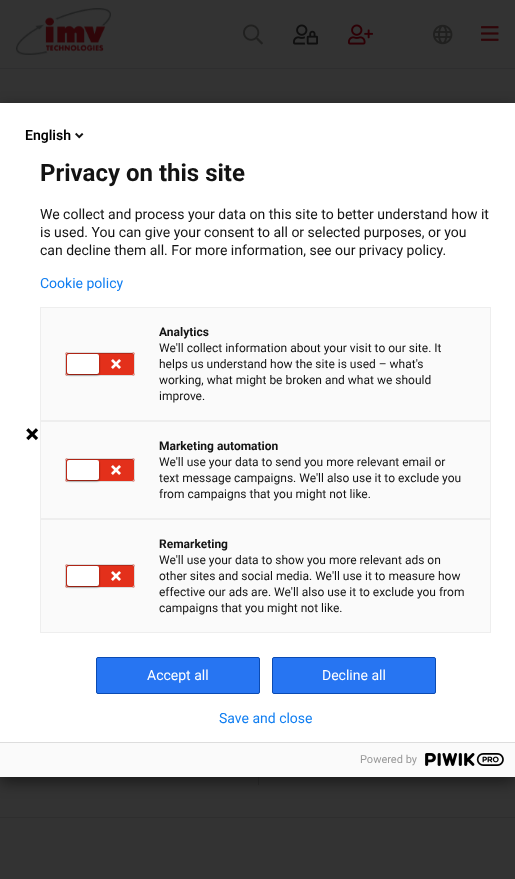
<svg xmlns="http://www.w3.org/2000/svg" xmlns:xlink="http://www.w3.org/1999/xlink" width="515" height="879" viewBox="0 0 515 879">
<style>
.cls-1{font:600 14px Roboto;fill:#000000}
.cls-2{font:bold 24px Roboto;fill:#131313}
.cls-3{font:14px Roboto;fill:#131313}
.cls-4{font:14px Roboto;fill:#107ef1}
.cls-5{font:bold 12px Roboto;fill:#131313}
.cls-6{font:12px Roboto;fill:#131313}
.cls-7{font:14px Roboto;fill:#ffffff}
.cls-8{font:11px Roboto;fill:#999999}
</style>
<rect width="100%" height="100%" fill="#333333"/>
<rect fill="#2e2e2f" x="0" y="68" width="515" height="1"/>
<image xlink:href="image0.png" x="16" y="8" width="95" height="47"/>
<image xlink:href="image1.png" x="243" y="24" width="20" height="21"/>
<image xlink:href="image2.png" x="293" y="24" width="25" height="21"/>
<image xlink:href="image3.png" x="348" y="24" width="25" height="21"/>
<image xlink:href="image4.png" x="433" y="24" width="20" height="21"/>
<image xlink:href="image5.png" x="481" y="26" width="18" height="15"/>
<rect fill="#2c2c2c" x="258" y="777" width="1" height="8"/>
<rect fill="#000000" fill-opacity="0.5" filter="blur(7.5px)" x="0" y="108" width="515" height="674"/>
<rect fill="#ffffff" x="0" y="103" width="515" height="639"/>
<image xlink:href="image6.png" x="75" y="132" width="9" height="7"/>
<image xlink:href="image7.png" x="26" y="428" width="13" height="13"/>
<rect fill="#fafafa" stroke="#eeeeee" x="40.5" y="307.5" width="450" height="113"/>
<rect fill="#e3301b" x="65" y="352" width="70" height="24" rx="3"/>
<path fill="#b62616" d="M68 354H133L134 356C134 350 125 353 121 353H79C75 353 66 350 66 356C66 355 67 354 68 354Z"/>
<rect fill="none" stroke="#dddddd" x="65.5" y="352.5" width="69" height="23" rx="2.5"/>
<rect fill="#000000" fill-opacity="0.5" filter="blur(1px)" x="67" y="355" width="32" height="20" rx="2"/>
<rect fill="#ffffff" x="67" y="354" width="32" height="20" rx="2"/>
<image xlink:href="image8.png" x="111" y="359" width="10" height="10"/>
<rect fill="#fafafa" stroke="#eeeeee" x="40.5" y="421.5" width="450" height="97"/>
<rect fill="#e3301b" x="65" y="458" width="70" height="24" rx="3"/>
<path fill="#b62616" d="M68 460H133L134 462C134 456 125 459 121 459H79C75 459 66 456 66 462C66 461 67 460 68 460Z"/>
<rect fill="none" stroke="#dddddd" x="65.5" y="458.5" width="69" height="23" rx="2.5"/>
<rect fill="#000000" fill-opacity="0.5" filter="blur(1px)" x="67" y="461" width="32" height="20" rx="2"/>
<rect fill="#ffffff" x="67" y="460" width="32" height="20" rx="2"/>
<image xlink:href="image8.png" x="111" y="465" width="10" height="10"/>
<rect fill="#fafafa" stroke="#eeeeee" x="40.5" y="519.5" width="450" height="113"/>
<rect fill="#e3301b" x="65" y="564" width="70" height="24" rx="3"/>
<path fill="#b62616" d="M68 566H133L134 568C134 562 125 565 121 565H79C75 565 66 562 66 568C66 567 67 566 68 566Z"/>
<rect fill="none" stroke="#dddddd" x="65.5" y="564.5" width="69" height="23" rx="2.5"/>
<rect fill="#000000" fill-opacity="0.5" filter="blur(1px)" x="67" y="567" width="32" height="20" rx="2"/>
<rect fill="#ffffff" x="67" y="566" width="32" height="20" rx="2"/>
<image xlink:href="image8.png" x="111" y="571" width="10" height="10"/>
<rect fill="#2775f2" stroke="#0b4bb3" x="96.5" y="657.5" width="163" height="36" rx="1.5"/>
<rect fill="#2775f2" stroke="#0b4bb3" x="272.5" y="657.5" width="163" height="36" rx="1.5"/>
<rect fill="#fafafa" x="0" y="743" width="515" height="34"/>
<rect fill="#dddddd" x="0" y="742" width="515" height="1"/>
<image xlink:href="image9.png" x="425" y="753" width="79" height="13"/>
<rect fill="#2e2e2e" x="0" y="817" width="515" height="1"/>
<text class="cls-1" x="25" y="140">English</text>
<text class="cls-2" x="40" y="181">Privacy on this site</text>
<text class="cls-3"><tspan x="40" y="219">We collect and process your data on this site to better understand how it</tspan><tspan x="40" y="237">is used. You can give your consent to all or selected purposes, or you</tspan><tspan x="40" y="255">can decline them all. For more information, see our privacy policy.</tspan></text>
<text class="cls-4" x="40" y="288">Cookie policy</text>
<text class="cls-5" x="159" y="336">Analytics</text>
<text class="cls-6"><tspan x="159" y="352">We'll collect information about your visit to our site. It</tspan><tspan x="159" y="368">helps us understand how the site is used – what's</tspan><tspan x="159" y="384">working, what might be broken and what we should</tspan><tspan x="159" y="400">improve.</tspan></text>
<text class="cls-5" x="159" y="450">Marketing automation</text>
<text class="cls-6"><tspan x="159" y="466">We'll use your data to send you more relevant email or</tspan><tspan x="159" y="482">text message campaigns. We'll also use it to exclude you</tspan><tspan x="159" y="498">from campaigns that you might not like.</tspan></text>
<text class="cls-5" x="159" y="548">Remarketing</text>
<text class="cls-6"><tspan x="159" y="564">We'll use your data to show you more relevant ads on</tspan><tspan x="159" y="580">other sites and social media. We'll use it to measure how</tspan><tspan x="159" y="596">effective our ads are. We'll also use it to exclude you from</tspan><tspan x="159" y="612">campaigns that you might not like.</tspan></text>
<text class="cls-7" x="147" y="680">Accept all</text>
<text class="cls-7" x="322" y="680">Decline all</text>
<text class="cls-4" x="219" y="723">Save and close</text>
<text class="cls-8" x="360" y="763">Powered by</text>
</svg>
